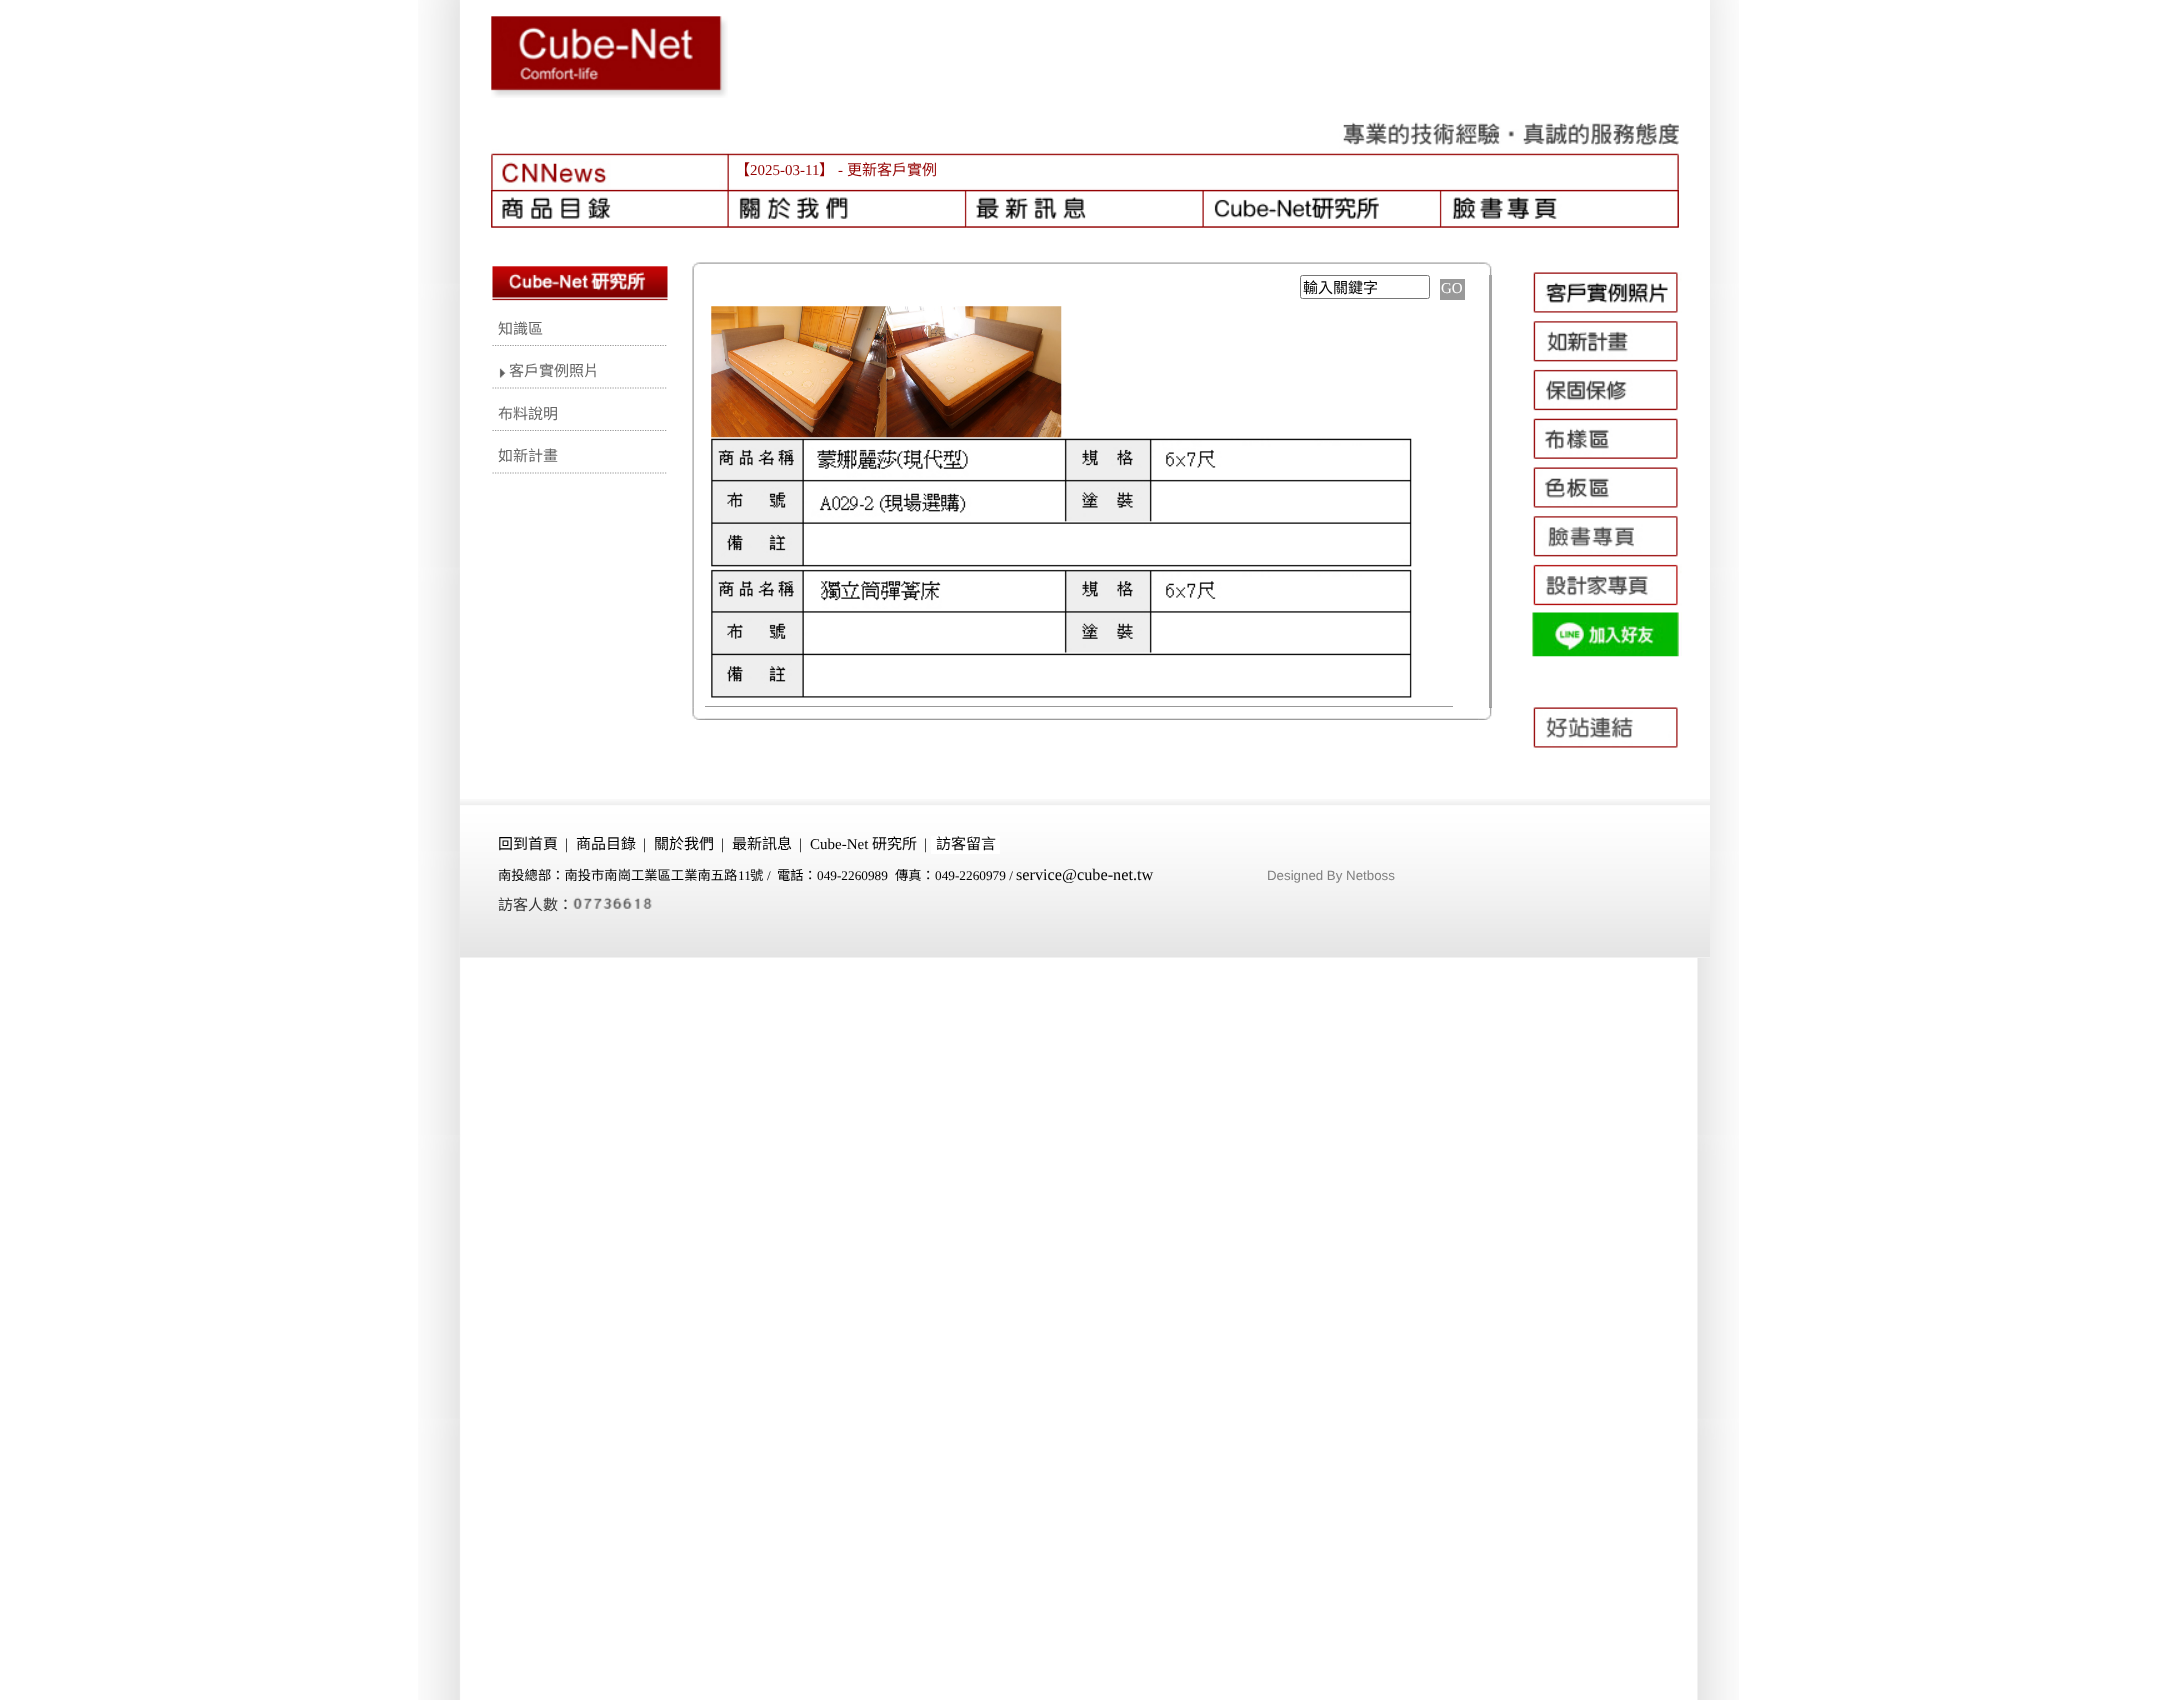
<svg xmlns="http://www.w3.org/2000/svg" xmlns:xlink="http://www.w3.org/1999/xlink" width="2169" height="1700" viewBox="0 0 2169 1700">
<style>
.cls-1{font:15px Noto Sans CJK TC;fill:#940202}
.cls-2{font:15px Liberation Serif;fill:#940202}
.cls-3{font:15px Noto Sans CJK TC;fill:#000000}
.cls-4{font:15px Liberation Serif;fill:#ffffff}
.cls-5{font:15px Noto Sans CJK TC;fill:#666666}
.cls-6{font:15px Liberation Serif;fill:#000000}
.cls-7{font:13.3px Noto Sans CJK TC;fill:#000000}
.cls-8{font:13.3px Liberation Serif;fill:#000000}
.cls-9{font:16.25px Liberation Serif;fill:#000000}
.cls-10{font:13.3px Liberation Sans;fill:#808080}
.cls-11{font:15px Noto Sans CJK TC;fill:#333333}
</style>
<rect width="100%" height="100%" fill="#ffffff"/>
<image xlink:href="image0.png" x="418" y="0" width="1321" height="1700"/>
<rect fill="#ffffff" x="460" y="0" width="1250" height="958"/>
<image xlink:href="image1.png" x="491" y="16" width="237" height="82"/>
<image xlink:href="image2.png" x="491" y="122" width="1188" height="70"/>
<image xlink:href="image3.png" x="491" y="190" width="238" height="38"/>
<image xlink:href="image4.png" x="491" y="190" width="238" height="38"/>
<image xlink:href="image5.png" x="728" y="190" width="239" height="38"/>
<image xlink:href="image6.png" x="728" y="190" width="239" height="38"/>
<image xlink:href="image7.png" x="966" y="190" width="238" height="38"/>
<image xlink:href="image8.png" x="966" y="190" width="238" height="38"/>
<image xlink:href="image9.png" x="1203" y="190" width="239" height="38"/>
<image xlink:href="image10.png" x="1203" y="190" width="239" height="38"/>
<image xlink:href="image11.png" x="1441" y="190" width="238" height="38"/>
<image xlink:href="image12.png" x="1441" y="190" width="238" height="38"/>
<image xlink:href="image13.png" x="692" y="262" width="13" height="13"/>
<image xlink:href="image14.png" x="705" y="262" width="774" height="2"/>
<image xlink:href="image15.png" x="1478" y="262" width="14" height="13"/>
<image xlink:href="image16.png" x="692" y="275" width="2" height="433"/>
<rect fill="none" stroke="#767676" x="1300.5" y="275.5" width="129" height="23" rx="2"/>
<rect fill="#999999" x="1440" y="279" width="25" height="21"/>
<rect fill="#999999" x="705" y="706" width="748" height="1"/>
<image xlink:href="image17.png" x="711" y="306" width="176" height="132"/>
<image xlink:href="image18.png" x="886" y="306" width="176" height="132"/>
<image xlink:href="image19.png" x="711" y="437" width="701" height="130"/>
<image xlink:href="image20.png" x="711" y="569" width="701" height="129"/>
<rect fill="#a5a5a5" x="1489" y="275" width="3" height="433"/>
<image xlink:href="image21.png" x="692" y="707" width="13" height="13"/>
<image xlink:href="image22.png" x="705" y="718" width="774" height="2"/>
<image xlink:href="image23.png" x="1478" y="707" width="14" height="13"/>
<image xlink:href="image24.png" x="492" y="266" width="176" height="35"/>
<path fill="none" stroke="#999999" stroke-width="1.2" stroke-dasharray="1.25 1.25" d="M492.5 345.5H667.5"/>
<path fill="none" stroke="#999999" stroke-width="1.2" stroke-dasharray="1.25 1.25" d="M492.5 388H667.5"/>
<image xlink:href="image25.png" x="499" y="368" width="7" height="10"/>
<path fill="none" stroke="#999999" stroke-width="1.2" stroke-dasharray="1.25 1.25" d="M492.5 430.5H667.5"/>
<path fill="none" stroke="#999999" stroke-width="1.2" stroke-dasharray="1.25 1.25" d="M492.5 473H667.5"/>
<image xlink:href="image26.png" x="1533" y="272" width="149" height="41"/>
<image xlink:href="image27.png" x="1533" y="321" width="145" height="41"/>
<image xlink:href="image28.png" x="1533" y="369" width="145" height="42"/>
<image xlink:href="image29.png" x="1533" y="418" width="145" height="41"/>
<image xlink:href="image30.png" x="1533" y="467" width="145" height="41"/>
<image xlink:href="image31.png" x="1533" y="515" width="145" height="42"/>
<image xlink:href="image32.png" x="1533" y="564" width="149" height="42"/>
<image xlink:href="image33.png" x="1532" y="612" width="150" height="45"/>
<image xlink:href="image34.png" x="1533" y="707" width="145" height="43"/>
<image xlink:href="image35.png" x="460" y="799" width="1250" height="159"/>
<rect fill="#ffffff" x="931" y="836" width="69" height="18"/>
<image xlink:href="image36.png" x="573" y="897" width="9" height="12"/>
<image xlink:href="image37.png" x="583" y="898" width="9" height="11"/>
<image xlink:href="image38.png" x="593" y="898" width="9" height="11"/>
<image xlink:href="image39.png" x="603" y="897" width="9" height="12"/>
<image xlink:href="image40.png" x="612" y="897" width="10" height="12"/>
<image xlink:href="image40.png" x="622" y="897" width="10" height="12"/>
<image xlink:href="image41.png" x="634" y="898" width="6" height="11"/>
<image xlink:href="image42.png" x="643" y="897" width="9" height="12"/>
<text class="cls-1" x="735" y="175">【</text>
<text class="cls-2" x="750" y="175">2025-03-11</text>
<text class="cls-1" x="819" y="175">】</text>
<text class="cls-2" x="838" y="175">-</text>
<text class="cls-1" x="847" y="175">更新客戶實例</text>
<text class="cls-3" x="1303" y="293">輸入關鍵字</text>
<text class="cls-4" x="1441" y="293">GO</text>
<text class="cls-5" x="498" y="334">知識區</text>
<text class="cls-5" x="509" y="376">客戶實例照片</text>
<text class="cls-5" x="498" y="419">布料說明</text>
<text class="cls-5" x="498" y="461">如新計畫</text>
<text class="cls-3" x="498" y="849">回到首頁</text>
<text class="cls-6" x="565" y="849">|</text>
<text class="cls-3" x="576" y="849">商品目錄</text>
<text class="cls-6" x="643" y="849">|</text>
<text class="cls-3" x="654" y="849">關於我們</text>
<text class="cls-6" x="721" y="849">|</text>
<text class="cls-3" x="732" y="849">最新訊息</text>
<text class="cls-6" x="799" y="849">|</text>
<text class="cls-6" x="810" y="849">Cube-Net</text>
<text class="cls-3" x="872" y="849">研究所</text>
<text class="cls-6" x="924" y="849">|</text>
<text class="cls-3" x="936" y="849">訪客留言</text>
<text class="cls-7" x="498" y="880">南投總部：南投市南崗工業區工業南五路</text>
<text class="cls-8" x="738" y="880">11</text>
<text class="cls-7" x="750" y="880">號</text>
<text class="cls-8" x="767" y="880">/</text>
<text class="cls-7" x="777" y="880">電話：</text>
<text class="cls-8" x="817" y="880">049-2260989</text>
<text class="cls-7" x="895" y="880">傳真：</text>
<text class="cls-8" x="935" y="880">049-2260979 /</text>
<text class="cls-9" x="1016" y="880">service@cube-net.tw</text>
<text class="cls-10" x="1267" y="880">Designed By Netboss</text>
<text class="cls-11" x="498" y="910">訪客人數：</text>
</svg>
